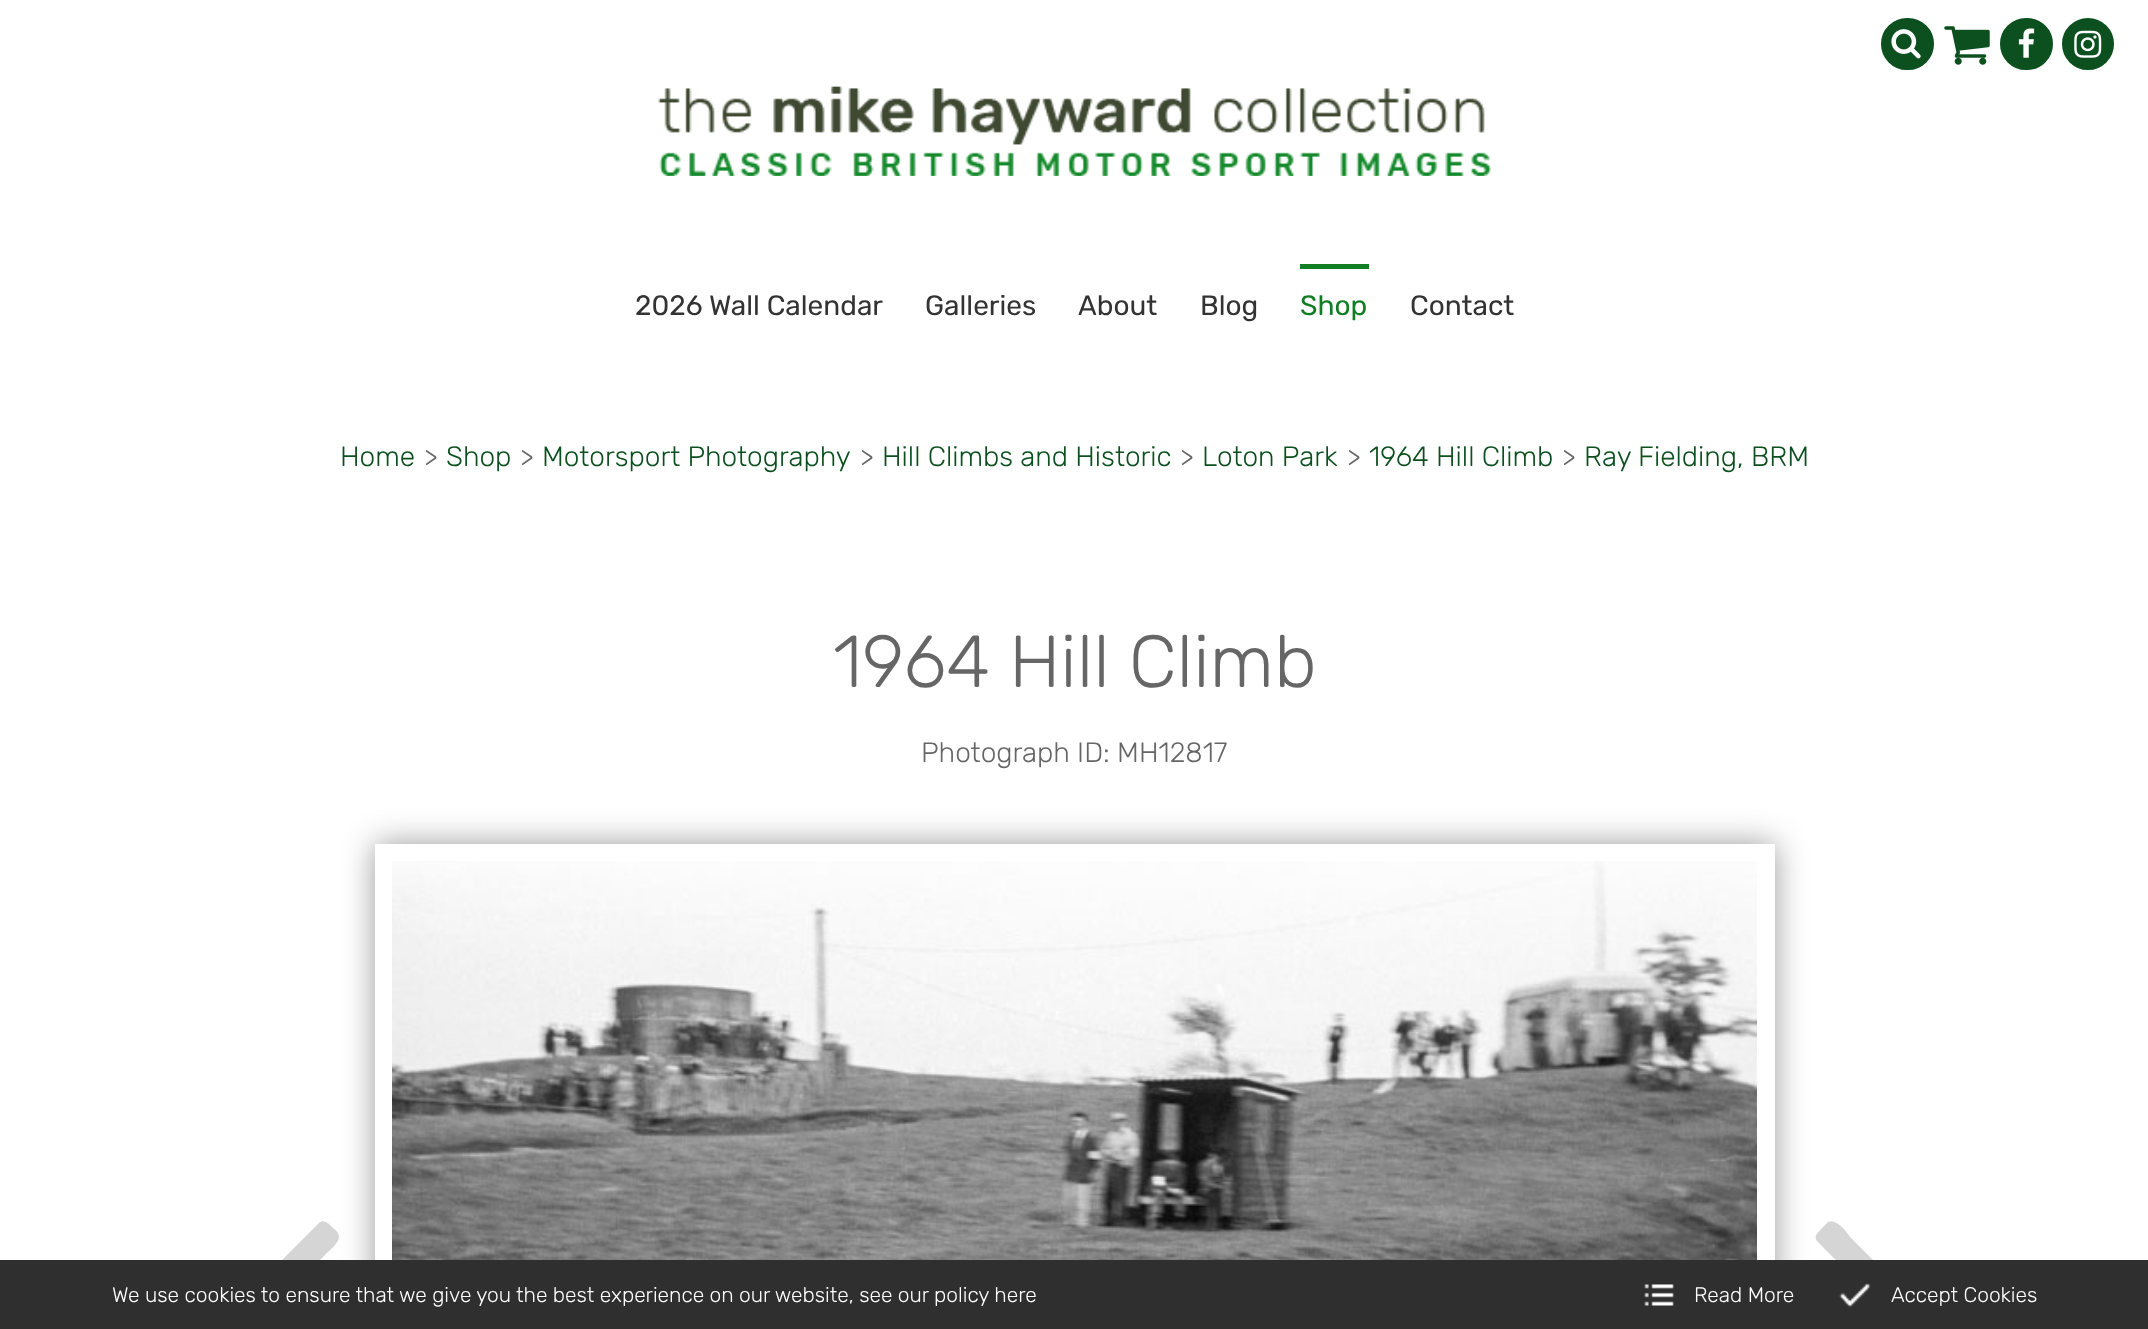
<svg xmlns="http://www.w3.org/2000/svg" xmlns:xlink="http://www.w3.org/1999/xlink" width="2148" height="1329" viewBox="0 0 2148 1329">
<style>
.cls-1{font:28px Rubik;fill:#333333}
.cls-2{font:28px Rubik;fill:#117d24}
.cls-3{font:300 28px Rubik;fill:#0c501f}
.cls-4{font:300 28px Rubik;fill:#666666}
.cls-5{font:300 73.5px Rubik;fill:#666666}
.cls-6{font:300 21px Rubik;fill:#ffffff}
</style>
<rect width="100%" height="100%" fill="#ffffff"/>
<rect fill="#0c501f" stroke="#0c501f" stroke-width="4" x="1883" y="20" width="49" height="48" rx="24"/>
<image xlink:href="image0.png" x="1891" y="29" width="30" height="30"/>
<image xlink:href="image1.png" x="1944" y="26" width="46" height="39"/>
<rect fill="#0c501f" stroke="#0c501f" stroke-width="4" x="2002" y="20" width="49" height="48" rx="24"/>
<image xlink:href="image2.png" x="2018" y="28" width="17" height="30"/>
<circle fill="#0c501f" stroke="#0c501f" stroke-width="4" cx="2088" cy="44" r="24"/>
<image xlink:href="image3.png" x="2074" y="30" width="28" height="28"/>
<image xlink:href="image4.png" x="658" y="86" width="833" height="90"/>
<rect fill="#117d24" x="1300" y="264" width="69" height="5"/>
<rect fill="#000000" fill-opacity="0.4" filter="blur(16px)" x="375" y="844" width="1400" height="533"/>
<rect fill="none" stroke="#ffffff" stroke-width="18" x="384" y="853" width="1382" height="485"/>
<image xlink:href="image5.png" x="392" y="861" width="1365" height="399"/>
<path fill="#d5d5d5" d="M339 1237C339 1244 325 1254 325 1255L261 1319L325 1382C326 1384 342 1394 339 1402C337 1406 334 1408 331 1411C327 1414 324 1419 319 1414L243 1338C220 1316 220 1321 243 1299L319 1223C323 1219 328 1223 331 1226C334 1229 339 1232 339 1237Z"/>
<path fill="#d5d5d5" d="M1929 1319C1929 1320 1928 1322 1927 1323L1834 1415C1829 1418 1826 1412 1822 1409C1818 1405 1813 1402 1817 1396L1894 1319L1817 1241C1813 1236 1819 1232 1822 1228L1828 1222C1837 1217 1850 1237 1851 1238L1927 1314C1928 1315 1929 1317 1929 1319Z"/>
<rect fill="#2f2f2f" x="0" y="1260" width="2148" height="69"/>
<image xlink:href="image6.png" x="1644" y="1284" width="30" height="22"/>
<image xlink:href="image7.png" x="1839" y="1283" width="32" height="25"/>
<text class="cls-1" x="635" y="315">2026 Wall Calendar</text>
<text class="cls-1" x="925" y="315">Galleries</text>
<text class="cls-1" x="1078" y="315">About</text>
<text class="cls-1" x="1200" y="315">Blog</text>
<text class="cls-2" x="1300" y="315">Shop</text>
<text class="cls-1" x="1410" y="315">Contact</text>
<text class="cls-3" x="340" y="466">Home</text>
<text class="cls-4" x="424" y="466">&gt;</text>
<text class="cls-3" x="446" y="466">Shop</text>
<text class="cls-4" x="520" y="466">&gt;</text>
<text class="cls-3" x="542" y="466">Motorsport Photography</text>
<text class="cls-4" x="860" y="466">&gt;</text>
<text class="cls-3" x="882" y="466">Hill Climbs and Historic</text>
<text class="cls-4" x="1180" y="466">&gt;</text>
<text class="cls-3" x="1202" y="466">Loton Park</text>
<text class="cls-4" x="1347" y="466">&gt;</text>
<text class="cls-3" x="1369" y="466">1964 Hill Climb</text>
<text class="cls-4" x="1562" y="466">&gt;</text>
<text class="cls-3" x="1584" y="466">Ray Fielding, BRM</text>
<text class="cls-5" x="833" y="687">1964 Hill Climb</text>
<text class="cls-4" x="921" y="762">Photograph ID: MH12817</text>
<text class="cls-6" x="112" y="1302">We use cookies to ensure that we give you the best experience on our website, see our policy here</text>
<text class="cls-6" x="1694" y="1302">Read More</text>
<text class="cls-6" x="1891" y="1302">Accept Cookies</text>
</svg>
